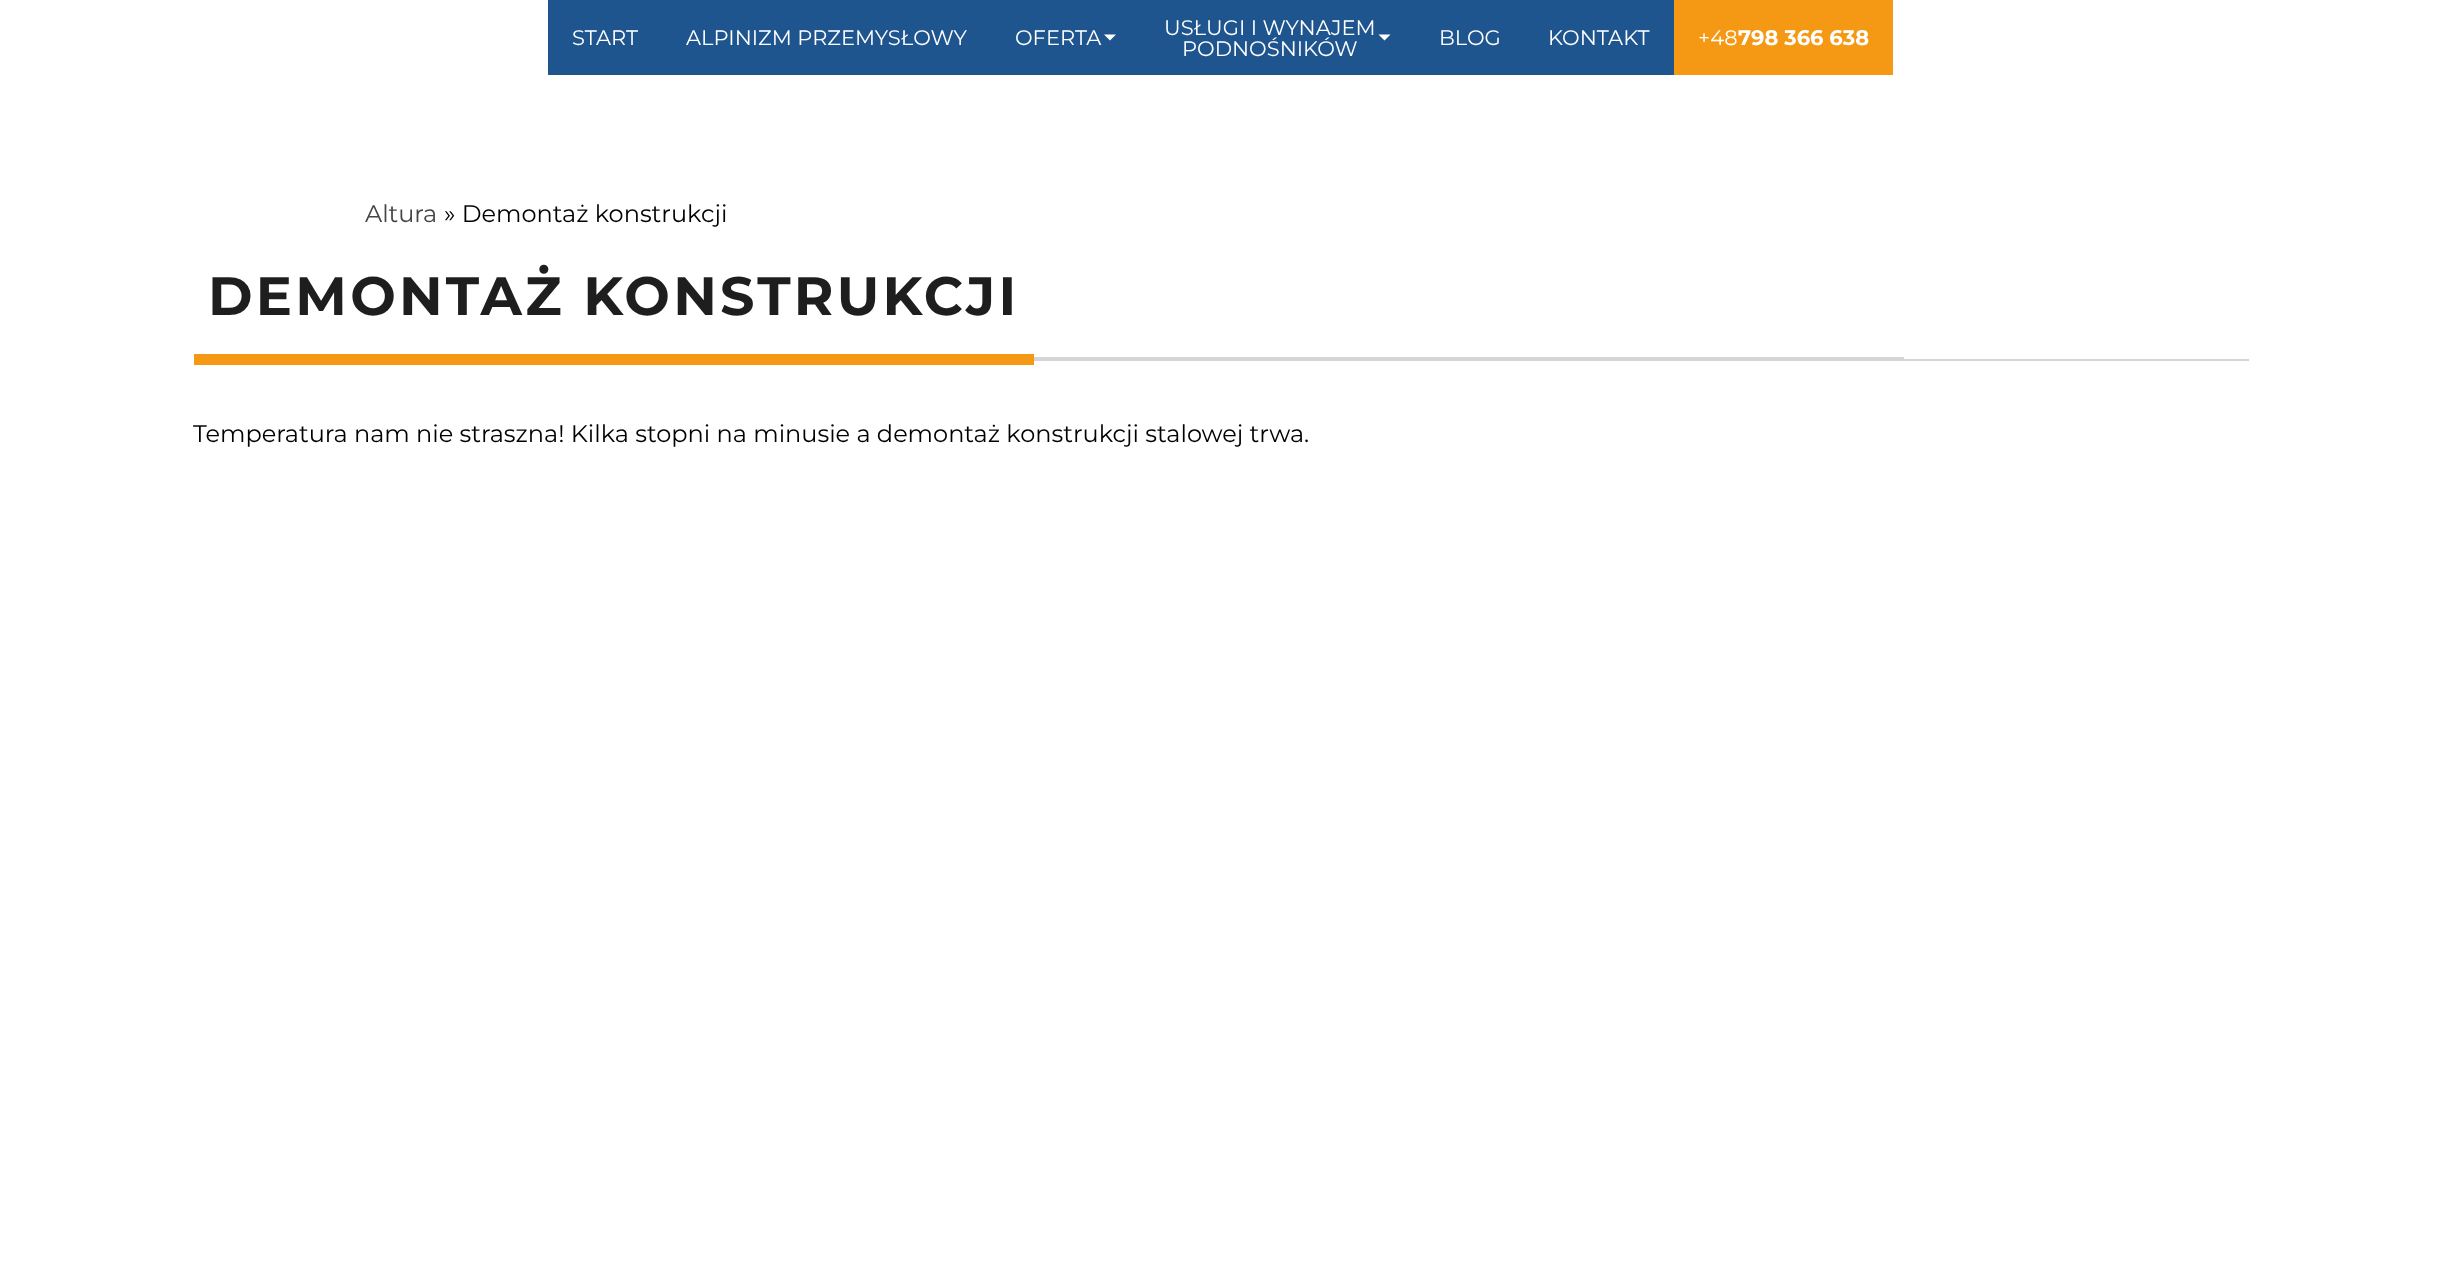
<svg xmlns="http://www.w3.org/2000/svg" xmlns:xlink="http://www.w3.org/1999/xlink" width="2440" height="1285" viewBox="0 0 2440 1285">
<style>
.cls-1{font:21px Montserrat;fill:#ffffff}
.cls-2{font:bold 21px Montserrat;fill:#ffffff}
.cls-3{font:24px Montserrat;fill:#454545}
.cls-4{font:24px Montserrat;fill:#000000}
.cls-5{font:bold 54px Montserrat;letter-spacing:3.25px;fill:#1e1e1e}
</style>
<rect width="100%" height="100%" fill="#ffffff"/>
<rect fill="#1f558f" x="548" y="0" width="1126" height="75"/>
<path fill="#ffffff" d="M1104 34.5H1116L1110 40.5Z"/>
<path fill="#ffffff" d="M1378.5 34.5H1390.5L1384.5 40.5Z"/>
<rect fill="#f59915" x="1674" y="0" width="219" height="75"/>
<rect fill="#d4d4d4" x="1034" y="359" width="1215" height="2"/>
<rect fill="#f59915" x="194" y="354" width="840" height="11"/>
<rect fill="#d6d6d6" x="1034" y="357" width="870" height="2"/>
<text class="cls-1" x="572" y="45">START</text>
<text class="cls-1" x="686" y="45">ALPINIZM PRZEMYSŁOWY</text>
<text class="cls-1" x="1015" y="45">OFERTA</text>
<text class="cls-1" x="1164" y="35">USŁUGI I WYNAJEM</text>
<text class="cls-1" x="1182" y="56">PODNOŚNIKÓW</text>
<text class="cls-1" x="1439" y="45">BLOG</text>
<text class="cls-1" x="1548" y="45">KONTAKT</text>
<text class="cls-1" x="1698" y="45">+48</text>
<text class="cls-2" x="1738" y="45">798 366 638</text>
<text class="cls-3" x="365" y="222">Altura</text>
<text class="cls-4" x="444" y="222">» Demontaż konstrukcji</text>
<text class="cls-5" x="208" y="315">DEMONTAŻ KONSTRUKCJI</text>
<text class="cls-4" x="193" y="442">Temperatura nam nie straszna! Kilka stopni na minusie a demontaż konstrukcji stalowej trwa.</text>
</svg>
